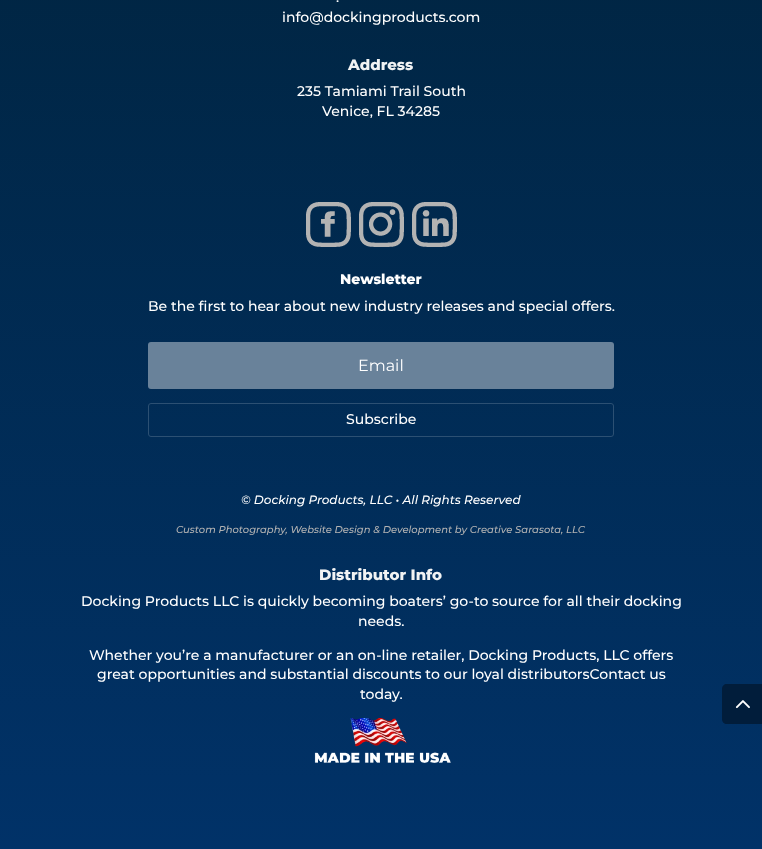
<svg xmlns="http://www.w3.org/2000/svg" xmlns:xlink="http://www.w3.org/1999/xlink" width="762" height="849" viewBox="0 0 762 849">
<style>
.cls-1{font:100 14px Montserrat;fill:#ffffff}
.cls-2{font:100 15px 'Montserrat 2';fill:#f1f3f4}
.cls-3{font:100 14px 'Montserrat 2';fill:#ffffff}
.cls-4{font:100 16px 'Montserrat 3';fill:#ffffff}
.cls-5{font:italic 100 12px Montserrat;fill:#ffffff}
.cls-6{font:italic 100 10px Montserrat;fill:#b3b3b3}
</style>
<defs>
<linearGradient id="g1" gradientUnits="userSpaceOnUse" x1="381" y1="-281" x2="381" y2="849"><stop offset="0" stop-color="#002239"/><stop offset="1" stop-color="#013268"/></linearGradient>
</defs>
<rect width="100%" height="100%" fill="#ffffff"/>
<rect fill="url(#g1)" x="0" y="0" width="762" height="849"/>
<image xlink:href="image0.png" x="306" y="202" width="45" height="45"/>
<image xlink:href="image1.png" x="359" y="202" width="45" height="45"/>
<image xlink:href="image2.png" x="412" y="202" width="45" height="45"/>
<rect fill="#69829a" x="148" y="342" width="466" height="47" rx="3"/>
<rect fill="none" stroke="#2c5073" x="148.5" y="403.5" width="465" height="33" rx="2.5"/>
<image xlink:href="image3.png" x="314" y="718" width="137" height="45"/>
<path fill="#011d3b" d="M727 684H762V724H727C724 724 722 722 722 719V689C722 686 724 684 727 684Z"/>
<image xlink:href="image4.png" x="735" y="700" width="15" height="9"/>
<text class="cls-1" x="336" y="2">.</text>
<text class="cls-1" x="282" y="22">info@dockingproducts.com</text>
<text class="cls-2" x="348" y="70">Address</text>
<text class="cls-1" x="297" y="96">235 Tamiami Trail South</text>
<text class="cls-1" x="322" y="116">Venice, FL 34285</text>
<text class="cls-3" x="340" y="284">Newsletter</text>
<text class="cls-1" x="148" y="311">Be the first to hear about new industry releases and special offers.</text>
<text class="cls-4" x="358" y="371">Email</text>
<text class="cls-1" x="346" y="424">Subscribe</text>
<text class="cls-5" x="241" y="504">© Docking Products, LLC • All Rights Reserved</text>
<text class="cls-6" x="176" y="533">Custom Photography, Website Design &amp; Development by Creative Sarasota, LLC</text>
<text class="cls-2" x="319" y="580">Distributor Info</text>
<text class="cls-1" x="81" y="606">Docking Products LLC is quickly becoming boaters’ go-to source for all their docking</text>
<text class="cls-1" x="358" y="626">needs.</text>
<text class="cls-1" x="89" y="660">Whether you’re a manufacturer or an on-line retailer, Docking Products, LLC offers</text>
<text class="cls-1" x="97" y="679">great opportunities and substantial discounts to our loyal distributorsContact us</text>
<text class="cls-1" x="360" y="699">today.</text>
</svg>
